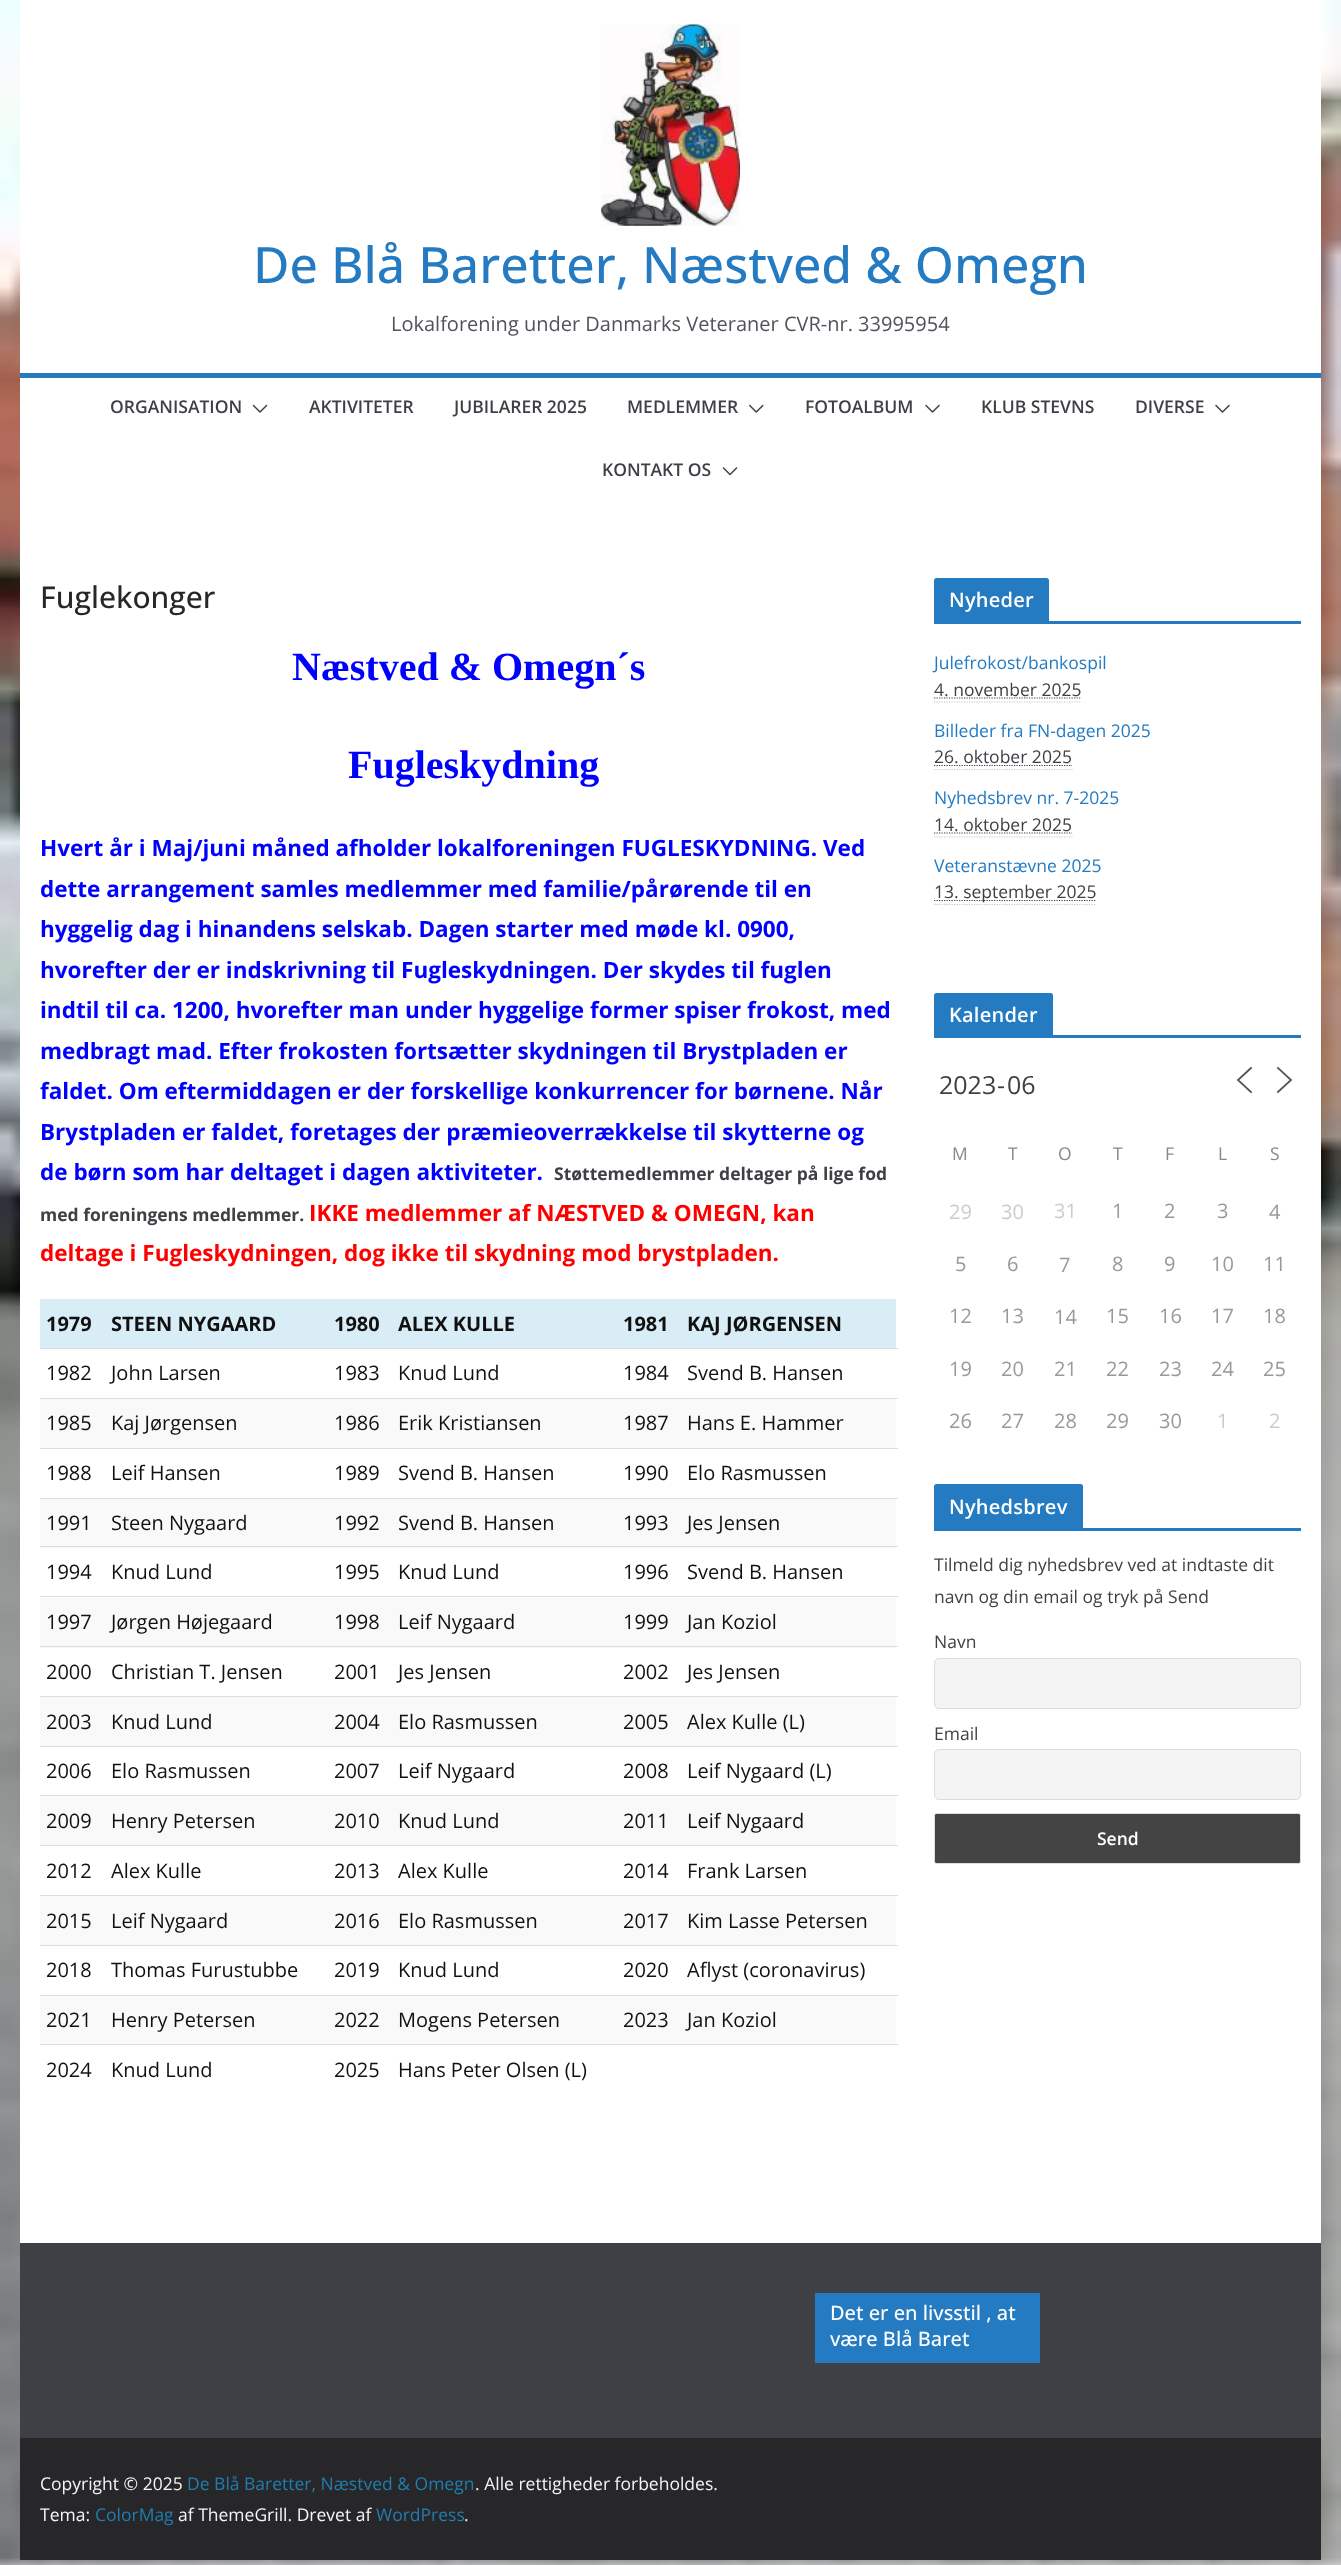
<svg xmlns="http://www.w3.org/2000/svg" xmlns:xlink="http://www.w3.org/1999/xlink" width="1341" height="2565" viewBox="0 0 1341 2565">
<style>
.cls-1{font:500 50px Open Sans;fill:#257bc1}
.cls-2{font:20px Open Sans;fill:#52525b}
.cls-3{font:600 17.5px Open Sans;fill:#3f3f46}
.cls-4{font:500 30px Open Sans;fill:#27272a}
.cls-5{font:bold 40px Liberation Serif;fill:#0000ff}
.cls-6{font:bold 22.5px Open Sans;fill:#0000ff}
.cls-7{font:bold 17.5px Open Sans;fill:#3f3f46}
.cls-8{font:bold 22.5px Open Sans;fill:#ff0000}
.cls-9{font:bold 20px Open Sans;fill:#111111}
.cls-10{font:20px Open Sans;fill:#111111}
.cls-11{font:600 20px Open Sans;letter-spacing:0.25px;fill:#ffffff}
.cls-12{font:17.5px Open Sans;fill:#257bc1}
.cls-13{font:17.5px Open Sans;fill:#3f3f46}
.cls-14{font:25px Open Sans;fill:#3f3f46}
.cls-15{font:17.5px Open Sans;fill:#888888}
.cls-16{font:20px Open Sans;fill:#cccccc}
.cls-17{font:20px Open Sans;fill:#999999}
.cls-18{font:600 17.5px Open Sans;fill:#ffffff}
.cls-19{font:500 20px Open Sans;fill:#ffffff}
.cls-20{font:17.5px Open Sans;fill:#f4f4f5}
.cls-21{font:17.5px Open Sans;fill:#207daf}
</style>
<rect width="100%" height="100%" fill="#e4e4e7"/>
<image xlink:href="image0.png" x="0" y="0" width="1341" height="2565"/>
<rect fill="#ffffff" x="20" y="0" width="1301" height="2243"/>
<image xlink:href="image1.png" x="601" y="24" width="139" height="202"/>
<rect fill="#257bc1" x="20" y="373" width="1301" height="5"/>
<image xlink:href="image2.png" x="252" y="404" width="16" height="9"/>
<image xlink:href="image3.png" x="749" y="404" width="15" height="9"/>
<image xlink:href="image4.png" x="925" y="404" width="15" height="9"/>
<image xlink:href="image4.png" x="1215" y="404" width="15" height="9"/>
<image xlink:href="image5.png" x="722" y="467" width="16" height="9"/>
<rect fill="#d9edf7" x="40" y="1299" width="856" height="49"/>
<rect fill="#dddddd" x="40" y="1348" width="858" height="1"/>
<rect fill="#f9f9f9" x="40" y="1399" width="856" height="49"/>
<rect fill="#dddddd" x="40" y="1398" width="858" height="1"/>
<rect fill="#dddddd" x="40" y="1448" width="858" height="1"/>
<rect fill="#f9f9f9" x="40" y="1499" width="856" height="49"/>
<rect fill="#dddddd" x="40" y="1498" width="858" height="1"/>
<rect fill="#dddddd" x="40" y="1546" width="858" height="1"/>
<rect fill="#f9f9f9" x="40" y="1598" width="856" height="50"/>
<rect fill="#dddddd" x="40" y="1596" width="858" height="1"/>
<rect fill="#dddddd" x="40" y="1646" width="858" height="1"/>
<rect fill="#f9f9f9" x="40" y="1697" width="856" height="49"/>
<rect fill="#dddddd" x="40" y="1696" width="858" height="1"/>
<rect fill="#dddddd" x="40" y="1746" width="858" height="1"/>
<rect fill="#f9f9f9" x="40" y="1796" width="856" height="49"/>
<rect fill="#dddddd" x="40" y="1795" width="858" height="1"/>
<rect fill="#dddddd" x="40" y="1845" width="858" height="1"/>
<rect fill="#f9f9f9" x="40" y="1896" width="856" height="49"/>
<rect fill="#dddddd" x="40" y="1895" width="858" height="1"/>
<rect fill="#dddddd" x="40" y="1945" width="858" height="1"/>
<rect fill="#f9f9f9" x="40" y="1996" width="856" height="48"/>
<rect fill="#dddddd" x="40" y="1995" width="858" height="1"/>
<rect fill="#dddddd" x="40" y="2044" width="858" height="1"/>
<rect fill="#257bc1" x="934" y="621" width="367" height="3"/>
<path fill="#257bc1" d="M936.5 578H1046.5C1048 578 1049 579 1049 580.5V621H934V580.5C934 579 935 578 936.5 578Z"/>
<path fill="none" stroke="#c7c7c7" stroke-width="1.2" stroke-dasharray="1.25 1.25" d="M934 702H1081"/>
<path fill="none" stroke="#3f3f46" stroke-width="1.2" stroke-dasharray="1.25 1.25" d="M934 698H1081.5"/>
<path fill="none" stroke="#c7c7c7" stroke-width="1.2" stroke-dasharray="1.25 1.25" d="M934 769.5H1072.5"/>
<path fill="none" stroke="#3f3f46" stroke-width="1.2" stroke-dasharray="1.25 1.25" d="M934 765.5H1072"/>
<path fill="none" stroke="#c7c7c7" stroke-width="1.2" stroke-dasharray="1.25 1.25" d="M934 837H1072.5"/>
<path fill="none" stroke="#3f3f46" stroke-width="1.2" stroke-dasharray="1.25 1.25" d="M934 833H1072"/>
<path fill="none" stroke="#c7c7c7" stroke-width="1.2" stroke-dasharray="1.25 1.25" d="M934 904.5H1096"/>
<path fill="none" stroke="#3f3f46" stroke-width="1.2" stroke-dasharray="1.25 1.25" d="M934 900.5H1096.5"/>
<rect fill="#257bc1" x="934" y="1035" width="367" height="3"/>
<path fill="#257bc1" d="M936.5 993H1050.5C1052 993 1053 994 1053 995.5V1035H934V995.5C934 994 935 993 936.5 993Z"/>
<path fill="none" stroke="#555555" stroke-width="1.8" stroke-linecap="square" d="M1251 1092L1238 1080L1251 1068M1278 1092L1291 1080L1278 1068"/>
<rect fill="#257bc1" x="934" y="1528" width="367" height="3"/>
<path fill="#257bc1" d="M936.5 1484H1080.5C1082 1484 1083 1485 1083 1486.5V1528H934V1486.5C934 1485 935 1484 936.5 1484Z"/>
<rect fill="#f4f4f4" stroke="#dddddd" x="934.5" y="1658.5" width="366" height="50" rx="4.5"/>
<rect fill="#f4f4f4" stroke="#dddddd" x="934.5" y="1749.5" width="366" height="50" rx="4.5"/>
<rect fill="#444444" stroke="#dddddd" x="934.5" y="1813.5" width="366" height="50" rx="2"/>
<rect fill="#3f3f46" x="20" y="2243" width="1301" height="195"/>
<rect fill="#257bc1" x="815" y="2293" width="225" height="70"/>
<rect fill="#27272a" x="20" y="2438" width="1301" height="122"/>
<text class="cls-1" x="253" y="283">De Blå Baretter, Næstved &amp; Omegn</text>
<text class="cls-2" x="391" y="331">Lokalforening under Danmarks Veteraner CVR-nr. 33995954</text>
<text class="cls-3" x="110" y="413">ORGANISATION</text>
<text class="cls-3" x="309" y="413">AKTIVITETER</text>
<text class="cls-3" x="454" y="413">JUBILARER 2025</text>
<text class="cls-3" x="627" y="413">MEDLEMMER</text>
<text class="cls-3" x="805" y="413">FOTOALBUM</text>
<text class="cls-3" x="981" y="413">KLUB STEVNS</text>
<text class="cls-3" x="1135" y="413">DIVERSE</text>
<text class="cls-3" x="602" y="476">KONTAKT OS</text>
<text class="cls-4" x="40" y="608">Fuglekonger</text>
<text class="cls-5" x="292" y="680">Næstved &amp; Omegn´s</text>
<text class="cls-5" x="348" y="778">Fugleskydning</text>
<text class="cls-6"><tspan x="40" y="856">Hvert år i Maj/juni måned afholder lokalforeningen FUGLESKYDNING. Ved</tspan><tspan x="40" y="897">dette arrangement samles medlemmer med familie/pårørende til en</tspan><tspan x="40" y="937">hyggelig dag i hinandens selskab. Dagen starter med møde kl. 0900,</tspan><tspan x="40" y="978">hvorefter der er indskrivning til Fugleskydningen. Der skydes til fuglen</tspan><tspan x="40" y="1018">indtil til ca. 1200, hvorefter man under hyggelige former spiser frokost, med</tspan><tspan x="40" y="1059">medbragt mad. Efter frokosten fortsætter skydningen til Brystpladen er</tspan><tspan x="40" y="1099">faldet. Om eftermiddagen er der forskellige konkurrencer for børnene. Når</tspan><tspan x="40" y="1140">Brystpladen er faldet, foretages der præmieoverrækkelse til skytterne og</tspan><tspan x="40" y="1180">de børn som har deltaget i dagen aktiviteter.</tspan></text>
<text class="cls-7" x="554" y="1180">Støttemedlemmer deltager på lige fod</text>
<text class="cls-7" x="40" y="1221">med foreningens medlemmer.</text>
<text class="cls-8" x="309" y="1221">IKKE medlemmer af NÆSTVED &amp; OMEGN, kan</text>
<text class="cls-8" x="40" y="1261">deltage i Fugleskydningen, dog ikke til skydning mod brystpladen.</text>
<text class="cls-9" x="46" y="1331">1979</text>
<text class="cls-9" x="111" y="1331">STEEN NYGAARD</text>
<text class="cls-9" x="334" y="1331">1980</text>
<text class="cls-9" x="398" y="1331">ALEX KULLE</text>
<text class="cls-9" x="623" y="1331">1981</text>
<text class="cls-9" x="687" y="1331">KAJ JØRGENSEN</text>
<text class="cls-10" x="46" y="1380">1982</text>
<text class="cls-10" x="111" y="1380">John Larsen</text>
<text class="cls-10" x="334" y="1380">1983</text>
<text class="cls-10" x="398" y="1380">Knud Lund</text>
<text class="cls-10" x="623" y="1380">1984</text>
<text class="cls-10" x="687" y="1380">Svend B. Hansen</text>
<text class="cls-10" x="46" y="1430">1985</text>
<text class="cls-10" x="111" y="1430">Kaj Jørgensen</text>
<text class="cls-10" x="334" y="1430">1986</text>
<text class="cls-10" x="398" y="1430">Erik Kristiansen</text>
<text class="cls-10" x="623" y="1430">1987</text>
<text class="cls-10" x="687" y="1430">Hans E. Hammer</text>
<text class="cls-10" x="46" y="1480">1988</text>
<text class="cls-10" x="111" y="1480">Leif Hansen</text>
<text class="cls-10" x="334" y="1480">1989</text>
<text class="cls-10" x="398" y="1480">Svend B. Hansen</text>
<text class="cls-10" x="623" y="1480">1990</text>
<text class="cls-10" x="687" y="1480">Elo Rasmussen</text>
<text class="cls-10" x="46" y="1530">1991</text>
<text class="cls-10" x="111" y="1530">Steen Nygaard</text>
<text class="cls-10" x="334" y="1530">1992</text>
<text class="cls-10" x="398" y="1530">Svend B. Hansen</text>
<text class="cls-10" x="623" y="1530">1993</text>
<text class="cls-10" x="687" y="1530">Jes Jensen</text>
<text class="cls-10" x="46" y="1579">1994</text>
<text class="cls-10" x="111" y="1579">Knud Lund</text>
<text class="cls-10" x="334" y="1579">1995</text>
<text class="cls-10" x="398" y="1579">Knud Lund</text>
<text class="cls-10" x="623" y="1579">1996</text>
<text class="cls-10" x="687" y="1579">Svend B. Hansen</text>
<text class="cls-10" x="46" y="1629">1997</text>
<text class="cls-10" x="111" y="1629">Jørgen Højegaard</text>
<text class="cls-10" x="334" y="1629">1998</text>
<text class="cls-10" x="398" y="1629">Leif Nygaard</text>
<text class="cls-10" x="623" y="1629">1999</text>
<text class="cls-10" x="687" y="1629">Jan Koziol</text>
<text class="cls-10" x="46" y="1679">2000</text>
<text class="cls-10" x="111" y="1679">Christian T. Jensen</text>
<text class="cls-10" x="334" y="1679">2001</text>
<text class="cls-10" x="398" y="1679">Jes Jensen</text>
<text class="cls-10" x="623" y="1679">2002</text>
<text class="cls-10" x="687" y="1679">Jes Jensen</text>
<text class="cls-10" x="46" y="1729">2003</text>
<text class="cls-10" x="111" y="1729">Knud Lund</text>
<text class="cls-10" x="334" y="1729">2004</text>
<text class="cls-10" x="398" y="1729">Elo Rasmussen</text>
<text class="cls-10" x="623" y="1729">2005</text>
<text class="cls-10" x="687" y="1729">Alex Kulle (L)</text>
<text class="cls-10" x="46" y="1778">2006</text>
<text class="cls-10" x="111" y="1778">Elo Rasmussen</text>
<text class="cls-10" x="334" y="1778">2007</text>
<text class="cls-10" x="398" y="1778">Leif Nygaard</text>
<text class="cls-10" x="623" y="1778">2008</text>
<text class="cls-10" x="687" y="1778">Leif Nygaard (L)</text>
<text class="cls-10" x="46" y="1828">2009</text>
<text class="cls-10" x="111" y="1828">Henry Petersen</text>
<text class="cls-10" x="334" y="1828">2010</text>
<text class="cls-10" x="398" y="1828">Knud Lund</text>
<text class="cls-10" x="623" y="1828">2011</text>
<text class="cls-10" x="687" y="1828">Leif Nygaard</text>
<text class="cls-10" x="46" y="1878">2012</text>
<text class="cls-10" x="111" y="1878">Alex Kulle</text>
<text class="cls-10" x="334" y="1878">2013</text>
<text class="cls-10" x="398" y="1878">Alex Kulle</text>
<text class="cls-10" x="623" y="1878">2014</text>
<text class="cls-10" x="687" y="1878">Frank Larsen</text>
<text class="cls-10" x="46" y="1928">2015</text>
<text class="cls-10" x="111" y="1928">Leif Nygaard</text>
<text class="cls-10" x="334" y="1928">2016</text>
<text class="cls-10" x="398" y="1928">Elo Rasmussen</text>
<text class="cls-10" x="623" y="1928">2017</text>
<text class="cls-10" x="687" y="1928">Kim Lasse Petersen</text>
<text class="cls-10" x="46" y="1977">2018</text>
<text class="cls-10" x="111" y="1977">Thomas Furustubbe</text>
<text class="cls-10" x="334" y="1977">2019</text>
<text class="cls-10" x="398" y="1977">Knud Lund</text>
<text class="cls-10" x="623" y="1977">2020</text>
<text class="cls-10" x="687" y="1977">Aflyst (coronavirus)</text>
<text class="cls-10" x="46" y="2027">2021</text>
<text class="cls-10" x="111" y="2027">Henry Petersen</text>
<text class="cls-10" x="334" y="2027">2022</text>
<text class="cls-10" x="398" y="2027">Mogens Petersen</text>
<text class="cls-10" x="623" y="2027">2023</text>
<text class="cls-10" x="687" y="2027">Jan Koziol</text>
<text class="cls-10" x="46" y="2077">2024</text>
<text class="cls-10" x="111" y="2077">Knud Lund</text>
<text class="cls-10" x="334" y="2077">2025</text>
<text class="cls-10" x="398" y="2077">Hans Peter Olsen (L)</text>
<text class="cls-11" x="949" y="607">Nyheder</text>
<text class="cls-12" x="934" y="669">Julefrokost/bankospil</text>
<text class="cls-13" x="934" y="696">4. november 2025</text>
<text class="cls-12" x="934" y="737">Billeder fra FN-dagen 2025</text>
<text class="cls-13" x="934" y="763">26. oktober 2025</text>
<text class="cls-12" x="934" y="804">Nyhedsbrev nr. 7-2025</text>
<text class="cls-13" x="934" y="831">14. oktober 2025</text>
<text class="cls-12" x="934" y="872">Veteranstævne 2025</text>
<text class="cls-13" x="934" y="898">13. september 2025</text>
<text class="cls-11" x="949" y="1022">Kalender</text>
<text class="cls-14" x="939" y="1094">2023</text>
<text class="cls-14" x="997" y="1094">-</text>
<text class="cls-14" x="1007" y="1094">06</text>
<text class="cls-15" x="952" y="1160">M</text>
<text class="cls-15" x="1008" y="1160">T</text>
<text class="cls-15" x="1058" y="1160">O</text>
<text class="cls-15" x="1113" y="1160">T</text>
<text class="cls-15" x="1165" y="1160">F</text>
<text class="cls-15" x="1218" y="1160">L</text>
<text class="cls-15" x="1270" y="1160">S</text>
<text class="cls-16" x="949" y="1219">29</text>
<text class="cls-16" x="1001" y="1219">30</text>
<text class="cls-16" x="1054" y="1218">31</text>
<text class="cls-17" x="1112" y="1218">1</text>
<text class="cls-17" x="1164" y="1218">2</text>
<text class="cls-17" x="1217" y="1218">3</text>
<text class="cls-17" x="1269" y="1219">4</text>
<text class="cls-17" x="955" y="1271">5</text>
<text class="cls-17" x="1007" y="1271">6</text>
<text class="cls-17" x="1059" y="1272">7</text>
<text class="cls-17" x="1112" y="1271">8</text>
<text class="cls-17" x="1164" y="1271">9</text>
<text class="cls-17" x="1211" y="1271">10</text>
<text class="cls-17" x="1263" y="1271">11</text>
<text class="cls-17" x="949" y="1323">12</text>
<text class="cls-17" x="1001" y="1323">13</text>
<text class="cls-17" x="1054" y="1324">14</text>
<text class="cls-17" x="1106" y="1323">15</text>
<text class="cls-17" x="1159" y="1323">16</text>
<text class="cls-17" x="1211" y="1323">17</text>
<text class="cls-17" x="1263" y="1323">18</text>
<text class="cls-17" x="949" y="1376">19</text>
<text class="cls-17" x="1001" y="1376">20</text>
<text class="cls-17" x="1054" y="1376">21</text>
<text class="cls-17" x="1106" y="1376">22</text>
<text class="cls-17" x="1159" y="1376">23</text>
<text class="cls-17" x="1211" y="1376">24</text>
<text class="cls-17" x="1263" y="1376">25</text>
<text class="cls-17" x="949" y="1428">26</text>
<text class="cls-17" x="1001" y="1428">27</text>
<text class="cls-17" x="1054" y="1428">28</text>
<text class="cls-17" x="1106" y="1428">29</text>
<text class="cls-17" x="1159" y="1428">30</text>
<text class="cls-16" x="1217" y="1428">1</text>
<text class="cls-16" x="1269" y="1428">2</text>
<text class="cls-11" x="949" y="1514">Nyhedsbrev</text>
<text class="cls-13"><tspan x="934" y="1571">Tilmeld dig nyhedsbrev ved at indtaste dit</tspan><tspan x="934" y="1603">navn og din email og tryk på Send</tspan></text>
<text class="cls-13" x="934" y="1648">Navn</text>
<text class="cls-13" x="934" y="1740">Email</text>
<text class="cls-18" x="1097" y="1845">Send</text>
<text class="cls-19"><tspan x="830" y="2320">Det er en livsstil , at</tspan><tspan x="830" y="2346">være Blå Baret</tspan></text>
<text class="cls-20" x="40" y="2490">Copyright © 2025</text>
<text class="cls-21" x="187" y="2490">De Blå Baretter, Næstved &amp; Omegn</text>
<text class="cls-20" x="475" y="2490">. Alle rettigheder forbeholdes.</text>
<text class="cls-20" x="40" y="2521">Tema:</text>
<text class="cls-21" x="95" y="2521">ColorMag</text>
<text class="cls-20" x="178" y="2521">af ThemeGrill. Drevet af</text>
<text class="cls-21" x="376" y="2521">WordPress</text>
<text class="cls-20" x="464" y="2521">.</text>
</svg>
